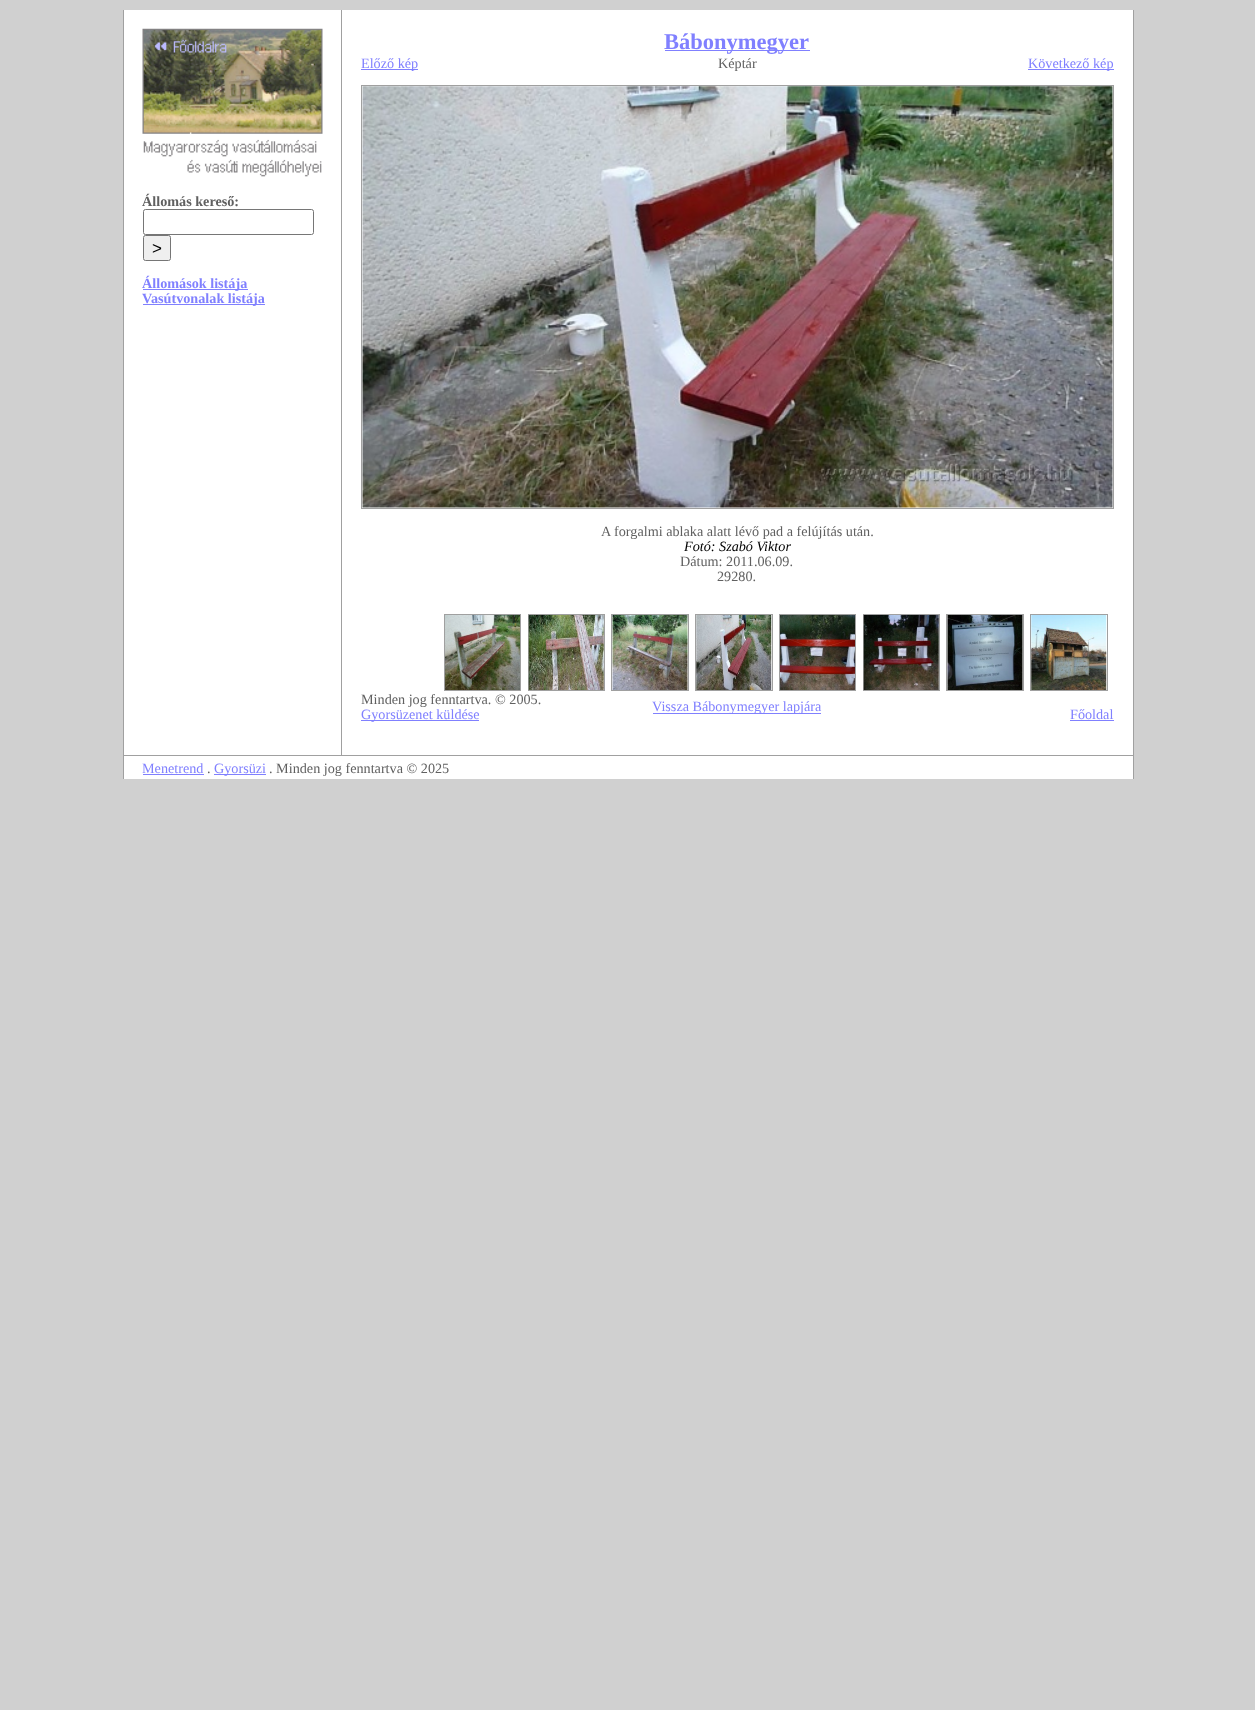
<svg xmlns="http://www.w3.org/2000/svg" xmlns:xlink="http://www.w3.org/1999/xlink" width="1255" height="1710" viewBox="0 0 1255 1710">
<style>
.cls-1{font:bold 14.2px Liberation Serif;fill:#606060}
.cls-2{font:17px Liberation Sans;fill:#000000}
.cls-3{font:bold 14.2px Liberation Serif;fill:#8080ff}
.cls-4{font:14.2px Liberation Serif;fill:#8080ff}
.cls-5{font:bold 22.5px Liberation Serif;fill:#8080ff}
.cls-6{font:14.2px Liberation Serif;fill:#606060}
.cls-7{font:italic 14.2px Liberation Serif;fill:#000000}
</style>
<rect width="100%" height="100%" fill="#d0d0d0"/>
<rect fill="#ffffff" x="124" y="10" width="1009" height="769"/>
<rect fill="#a0a0a0" x="123" y="10" width="1" height="745"/>
<image xlink:href="image0.png" x="142" y="28" width="181" height="149"/>
<rect fill="none" stroke="#767676" x="143.5" y="209.5" width="170" height="25" rx="2"/>
<rect fill="#efefef" stroke="#767676" x="143.5" y="235.5" width="27" height="25" rx="2"/>
<rect fill="#8080ff" x="143" y="289" width="105" height="1"/>
<rect fill="#8080ff" x="143" y="304" width="122" height="1"/>
<rect fill="#a0a0a0" x="1133" y="10" width="1" height="745"/>
<rect fill="#a0a0a0" x="341" y="10" width="1" height="745"/>
<rect fill="#8080ff" x="361" y="69" width="57" height="1"/>
<rect fill="#8080ff" x="665" y="50" width="145" height="1"/>
<rect fill="#8080ff" x="1028" y="69" width="86" height="1"/>
<rect fill="none" stroke="#a0a0a0" x="361.5" y="85.5" width="752" height="423"/>
<image xlink:href="image1.png" x="362" y="86" width="751" height="422"/>
<rect fill="none" stroke="#a0a0a0" x="444.5" y="614.5" width="76" height="76"/>
<image xlink:href="image2.png" x="445" y="615" width="75" height="75"/>
<rect fill="none" stroke="#a0a0a0" x="528.5" y="614.5" width="76" height="76"/>
<image xlink:href="image3.png" x="528" y="615" width="76" height="75"/>
<rect fill="none" stroke="#a0a0a0" x="611.5" y="614.5" width="77" height="76"/>
<image xlink:href="image4.png" x="612" y="615" width="76" height="75"/>
<rect fill="none" stroke="#a0a0a0" x="695.5" y="614.5" width="77" height="76"/>
<image xlink:href="image5.png" x="696" y="615" width="76" height="75"/>
<rect fill="none" stroke="#a0a0a0" x="779.5" y="614.5" width="76" height="76"/>
<image xlink:href="image6.png" x="780" y="615" width="75" height="75"/>
<rect fill="none" stroke="#a0a0a0" x="863.5" y="614.5" width="76" height="76"/>
<image xlink:href="image7.png" x="863" y="615" width="76" height="75"/>
<rect fill="none" stroke="#a0a0a0" x="946.5" y="614.5" width="77" height="76"/>
<image xlink:href="image8.png" x="947" y="615" width="76" height="75"/>
<rect fill="none" stroke="#a0a0a0" x="1030.5" y="614.5" width="77" height="76"/>
<image xlink:href="image9.png" x="1031" y="615" width="76" height="75"/>
<rect fill="#8080ff" x="361" y="720" width="118" height="1"/>
<rect fill="#8080ff" x="653" y="713" width="168" height="1"/>
<rect fill="#8080ff" x="1070" y="720" width="44" height="1"/>
<rect fill="#a0a0a0" x="123" y="755" width="1011" height="1"/>
<rect fill="#a0a0a0" x="1133" y="755" width="1" height="24"/>
<rect fill="#a0a0a0" x="123" y="755" width="1" height="24"/>
<rect fill="#8080ff" x="143" y="774" width="61" height="1"/>
<rect fill="#8080ff" x="214" y="774" width="52" height="1"/>
<text class="cls-1" x="142" y="206">Állomás kereső:</text>
<text class="cls-2" x="152" y="254">&gt;</text>
<text class="cls-3"><tspan x="142" y="288">Állomások listája</tspan><tspan x="142" y="303">Vasútvonalak listája</tspan></text>
<text class="cls-4" x="361" y="68">Előző kép</text>
<text class="cls-5" x="664" y="49">Bábonymegyer</text>
<text class="cls-6" x="718" y="68">Képtár</text>
<text class="cls-4" x="1028" y="68">Következő kép</text>
<text class="cls-6" x="601" y="536">A forgalmi ablaka alatt lévő pad a felújítás után.</text>
<text class="cls-7" x="684" y="551">Fotó: Szabó Viktor</text>
<text class="cls-6" x="680" y="566">Dátum: 2011.06.09.</text>
<text class="cls-6" x="717" y="581">29280.</text>
<text class="cls-6" x="361" y="704">Minden jog fenntartva. © 2005.</text>
<text class="cls-4" x="361" y="719">Gyorsüzenet küldése</text>
<text class="cls-4" x="652" y="711">Vissza Bábonymegyer lapjára</text>
<text class="cls-4" x="1070" y="719">Főoldal</text>
<text class="cls-4" x="142" y="773">Menetrend</text>
<text class="cls-6" x="207" y="773">.</text>
<text class="cls-4" x="214" y="773">Gyorsüzi</text>
<text class="cls-6" x="269" y="773">. Minden jog fenntartva © 2025</text>
</svg>
